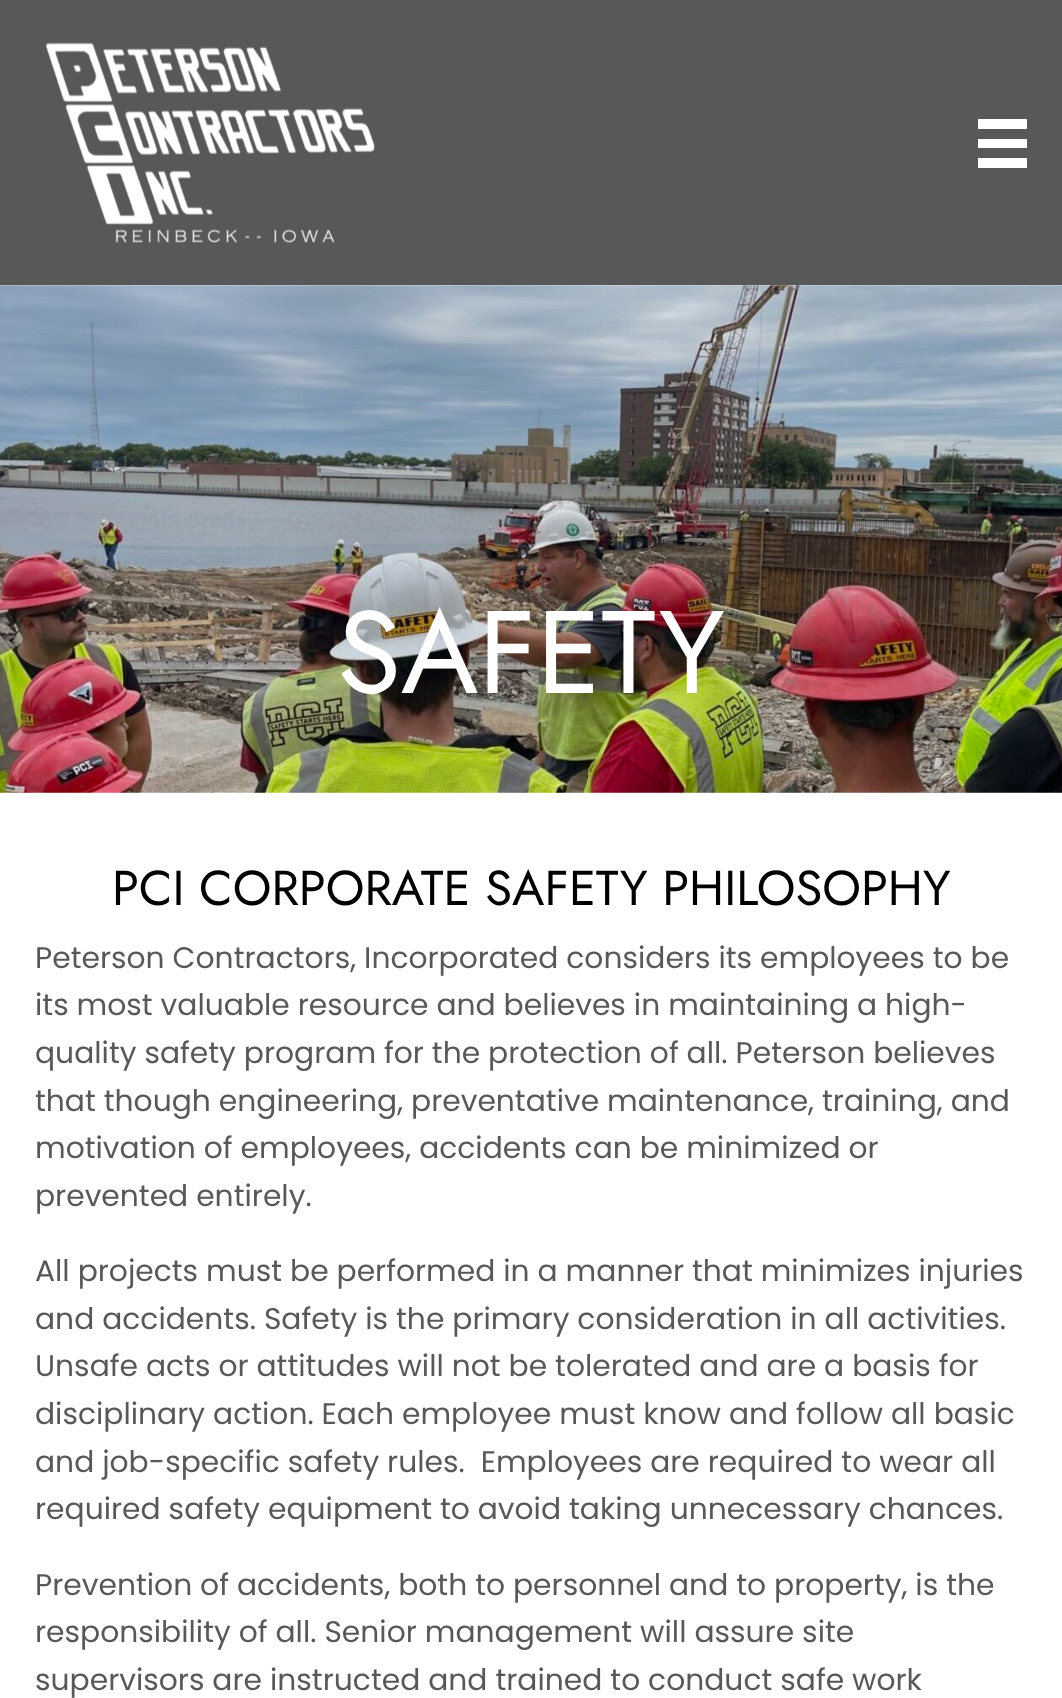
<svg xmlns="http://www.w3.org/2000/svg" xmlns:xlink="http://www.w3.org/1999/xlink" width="1062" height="1698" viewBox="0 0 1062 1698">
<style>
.cls-1{font:117px Jost;fill:#ffffff}
.cls-2{font:49px Jost;fill:#000000}
.cls-3{font:29.75px Poppins;fill:#585858}
</style>
<rect width="100%" height="100%" fill="#ffffff"/>
<rect fill="#585858" x="0" y="0" width="1062" height="285"/>
<image xlink:href="image0.png" x="45" y="42" width="330" height="201"/>
<rect fill="#ffffff" x="978" y="119" width="49" height="10"/>
<rect fill="#ffffff" x="978" y="139" width="49" height="9"/>
<rect fill="#ffffff" x="978" y="158" width="49" height="10"/>
<image xlink:href="image1.png" x="0" y="285" width="1062" height="508"/>
<text class="cls-1" x="337" y="693">SAFETY</text>
<text class="cls-2" x="112" y="905">PCI CORPORATE SAFETY PHILOSOPHY</text>
<text class="cls-3"><tspan x="35" y="968">Peterson Contractors, Incorporated considers its employees to be</tspan><tspan x="35" y="1015">its most valuable resource and believes in maintaining a high-</tspan><tspan x="35" y="1063">quality safety program for the protection of all. Peterson believes</tspan><tspan x="35" y="1111">that though engineering, preventative maintenance, training, and</tspan><tspan x="35" y="1158">motivation of employees, accidents can be minimized or</tspan><tspan x="35" y="1206">prevented entirely.</tspan></text>
<text class="cls-3" xml:space="preserve"><tspan x="35" y="1281">All projects must be performed in a manner that minimizes injuries</tspan><tspan x="35" y="1329">and accidents. Safety is the primary consideration in all activities.</tspan><tspan x="35" y="1376">Unsafe acts or attitudes will not be tolerated and are a basis for</tspan><tspan x="35" y="1424">disciplinary action. Each employee must know and follow all basic</tspan><tspan x="35" y="1472">and job-specific safety rules.  Employees are required to wear all</tspan><tspan x="35" y="1519">required safety equipment to avoid taking unnecessary chances.</tspan></text>
<text class="cls-3"><tspan x="35" y="1595">Prevention of accidents, both to personnel and to property, is the</tspan><tspan x="35" y="1642">responsibility of all. Senior management will assure site</tspan><tspan x="35" y="1690">supervisors are instructed and trained to conduct safe work</tspan></text>
</svg>
